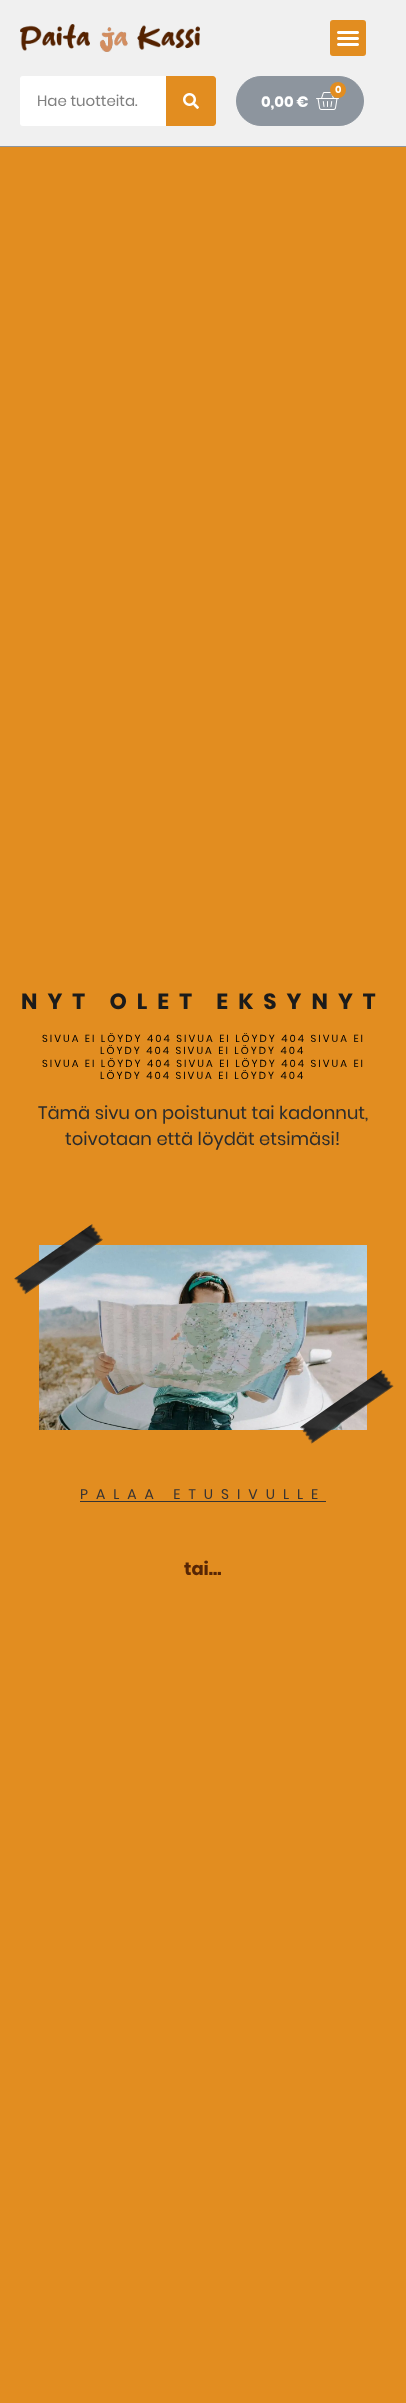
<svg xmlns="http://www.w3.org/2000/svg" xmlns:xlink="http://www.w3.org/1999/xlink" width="406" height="2403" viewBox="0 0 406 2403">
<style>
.cls-1{font:15px Poppins;fill:#808080}
.cls-2{font:bold 10px Poppins;fill:#ffffff}
.cls-3{font:bold 15px Poppins;fill:#ffffff}
.cls-4{font:bold 22px Poppins;letter-spacing:10px;fill:#1b1b1b}
.cls-5{font:10.15px Poppins;letter-spacing:2px;fill:#000000}
.cls-6{font:18px Poppins;fill:#2c2c2c}
.cls-7{font:14px Poppins;letter-spacing:8px;fill:#373333}
.cls-8{font:bold 18px Poppins;fill:#572605}
</style>
<rect width="100%" height="100%" fill="#f0f0f0"/>
<rect fill="#8d959e" x="0" y="146" width="406" height="1"/>
<image xlink:href="image0.png" x="20" y="24" width="180" height="28"/>
<rect fill="#e28d20" x="330" y="20" width="36" height="36" rx="3"/>
<image xlink:href="image1.png" x="337" y="31" width="22" height="15"/>
<rect fill="#ffffff" x="20" y="76" width="196" height="50" rx="3"/>
<path fill="#e28d20" d="M166 76H213C214.5 76 216 77.5 216 79V123C216 124.5 214.5 126 213 126H166Z"/>
<image xlink:href="image2.png" x="183" y="93" width="16" height="16"/>
<rect fill="#8d959e" stroke="#8d959e" x="236.5" y="76.5" width="127" height="49" rx="24.5"/>
<image xlink:href="image3.png" x="316" y="92" width="23" height="18"/>
<circle fill="#e28d20" cx="338" cy="90" r="8"/>
<rect fill="#e28d20" x="0" y="147" width="406" height="2256"/>
<image xlink:href="image5.png" x="39" y="1245" width="328" height="185"/>
<image xlink:href="image4.png" x="14" y="1224" width="89" height="71"/>
<image xlink:href="image6.png" x="300" y="1370" width="94" height="74"/>
<rect fill="#373333" x="80" y="1501" width="246" height="1"/>
<text class="cls-1" x="37" y="106">Hae tuotteita.</text>
<text class="cls-2" x="335" y="93">0</text>
<text class="cls-3" x="261" y="107">0,00 €</text>
<text class="cls-4" x="21" y="1009">NYT OLET EKSYNYT</text>
<text class="cls-5" x="42" y="1042">SIVUA EI LÖYDY 404 SIVUA EI LÖYDY 404 SIVUA EI</text>
<text class="cls-5" x="100" y="1054">LÖYDY 404 SIVUA EI LÖYDY 404</text>
<text class="cls-5" x="42" y="1067">SIVUA EI LÖYDY 404 SIVUA EI LÖYDY 404 SIVUA EI</text>
<text class="cls-5" x="100" y="1079">LÖYDY 404 SIVUA EI LÖYDY 404</text>
<text class="cls-6" x="38" y="1119">Tämä sivu on poistunut tai kadonnut,</text>
<text class="cls-6" x="65" y="1145">toivotaan että löydät etsimäsi!</text>
<text class="cls-7" x="80" y="1499">PALAA ETUSIVULLE</text>
<text class="cls-8" x="184" y="1575">tai...</text>
</svg>
